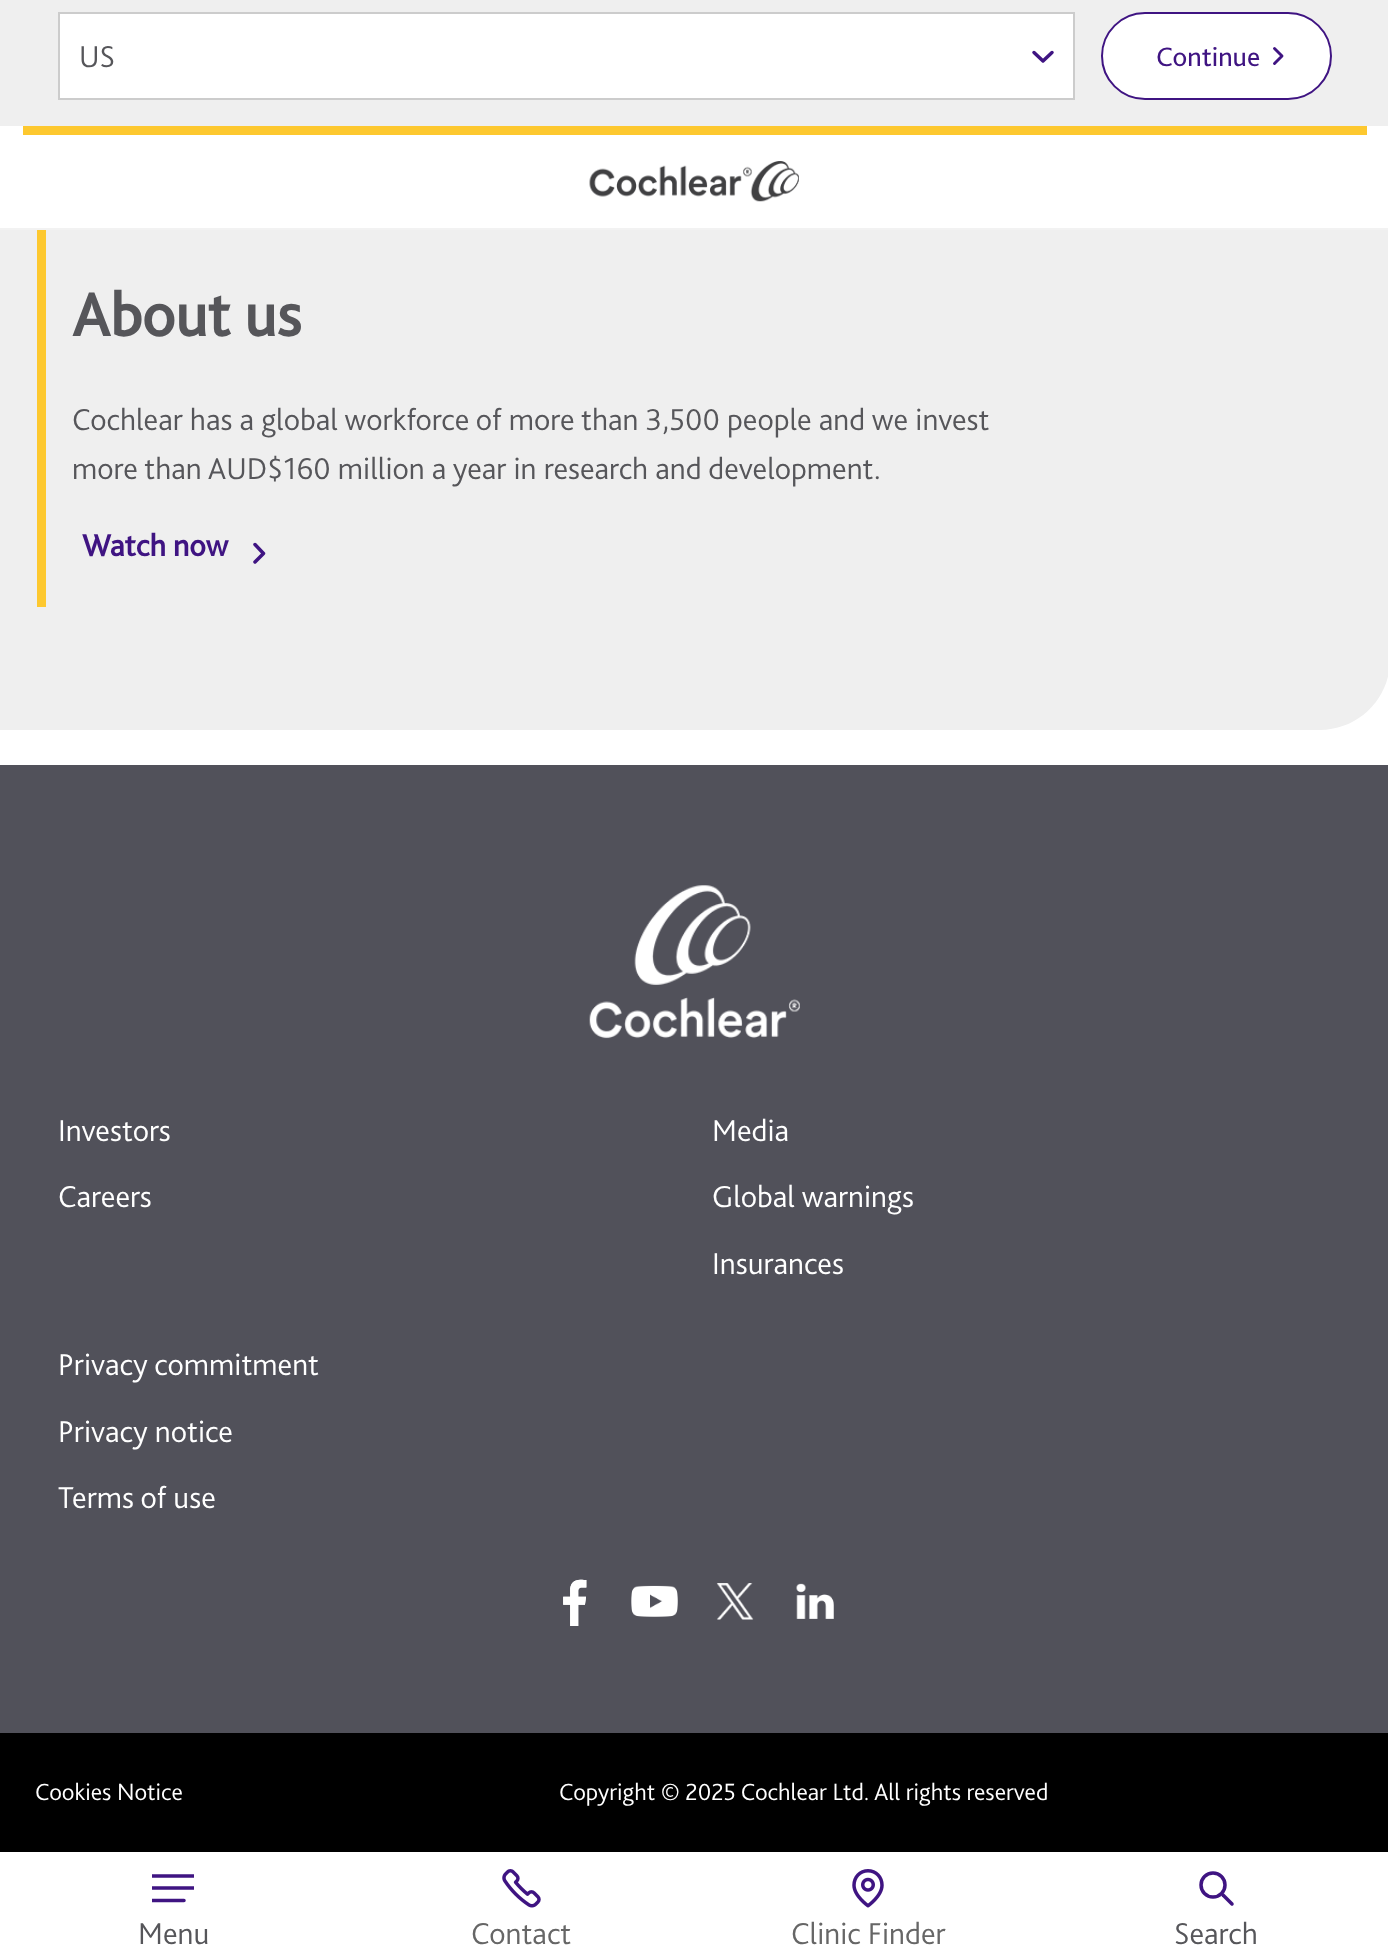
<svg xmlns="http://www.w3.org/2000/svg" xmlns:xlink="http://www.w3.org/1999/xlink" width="1388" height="1955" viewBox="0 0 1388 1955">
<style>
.cls-1{font:300 31.5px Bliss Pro;fill:#56565a}
.cls-2{font:28px Bliss Pro;fill:#3f1482}
.cls-3{font:300 31.5px Bliss Pro;fill:#666666}
.cls-4{font:bold 63px Bliss Pro;fill:#56565a}
.cls-5{font:bold 31.5px Bliss Pro;fill:#3f1482}
.cls-6{font:300 31.5px Bliss Pro;fill:#ffffff}
.cls-7{font:300 24.5px Bliss Pro;fill:#ffffff}
</style>
<defs>
<clipPath id="clip1"><rect x="152" y="1867" width="42" height="42"/></clipPath>
</defs>
<rect width="100%" height="100%" fill="#ffffff"/>
<path fill="#efefef" d="M0 229H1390V660C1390 698.5 1358.5 730 1320 730H0Z"/>
<rect fill="#f2f2f2" x="0" y="228" width="1388" height="2"/>
<rect fill="#efefef" x="0" y="0" width="1388" height="126"/>
<rect fill="#ffffff" x="60" y="14" width="1013" height="84"/>
<path fill="none" stroke="#3f1482" stroke-width="3.5" stroke-linecap="round" stroke-linejoin="round" d="M1052 52.5L1043 61L1034 52.5"/>
<rect fill="none" stroke="#cccccc" stroke-width="2" x="59" y="13" width="1015" height="86"/>
<rect fill="#ffffff" stroke="#3f1482" stroke-width="2" x="1102" y="13" width="229" height="86" rx="43"/>
<path fill="none" stroke="#3f1482" stroke-width="2.9" stroke-linecap="round" stroke-linejoin="round" d="M1274.5 48.5L1282 56L1274.5 63.5"/>
<rect fill="#fdc82f" x="23" y="126" width="1344" height="9"/>
<image xlink:href="image0.png" x="589" y="161" width="210" height="41"/>
<g clip-path="url(#clip1)">
<path fill="none" stroke="#3f1482" stroke-width="3.5" stroke-linecap="round" stroke-linejoin="round" d="M152 1888H194M152 1900.5H184M152 1876H194"/>
</g>
<image xlink:href="image1.png" x="502" y="1869" width="39" height="39"/>
<image xlink:href="image2.png" x="852" y="1869" width="32" height="39"/>
<circle fill="none" stroke="#3f1482" stroke-width="3.5" cx="1213" cy="1885" r="12"/>
<path fill="none" stroke="#3f1482" stroke-width="3.5" stroke-linecap="round" d="M1223 1895L1232 1904"/>
<rect fill="#fdc82f" x="37" y="230" width="9" height="377"/>
<path fill="none" stroke="#3f1482" stroke-width="3.5" stroke-linecap="round" stroke-linejoin="round" d="M255 544.5L263.5 553.5L255 562"/>
<rect fill="#51515a" x="0" y="765" width="1388" height="968"/>
<image xlink:href="image3.png" x="589" y="885" width="211" height="154"/>
<image xlink:href="image4.png" x="563" y="1579" width="24" height="47"/>
<image xlink:href="image5.png" x="631" y="1585" width="47" height="32"/>
<image xlink:href="image6.png" x="716" y="1583" width="38" height="37"/>
<image xlink:href="image7.png" x="796" y="1583" width="38" height="36"/>
<rect fill="#000000" x="0" y="1733" width="1388" height="119"/>
<text class="cls-1" x="79" y="67">US</text>
<text class="cls-2" x="1156" y="66">Continue</text>
<text class="cls-1" x="138" y="1944">Menu</text>
<text class="cls-3" x="471" y="1944">Contact</text>
<text class="cls-3" x="791" y="1944">Clinic Finder</text>
<text class="cls-1" x="1174" y="1944">Search</text>
<text class="cls-4" x="72" y="336">About us</text>
<text class="cls-1"><tspan x="72" y="430">Cochlear has a global workforce of more than 3,500 people and we invest</tspan><tspan x="72" y="479">more than AUD$160 million a year in research and development.</tspan></text>
<text class="cls-5" x="82" y="556">Watch now</text>
<text class="cls-6" x="58" y="1141">Investors</text>
<text class="cls-6" x="58" y="1207">Careers</text>
<text class="cls-6" x="712" y="1141">Media</text>
<text class="cls-6" x="712" y="1207">Global warnings</text>
<text class="cls-6" x="712" y="1274">Insurances</text>
<text class="cls-6" x="58" y="1375">Privacy commitment</text>
<text class="cls-6" x="58" y="1442">Privacy notice</text>
<text class="cls-6" x="58" y="1508">Terms of use</text>
<text class="cls-7" x="35" y="1800">Cookies Notice</text>
<text class="cls-7" x="559" y="1800">Copyright © 2025 Cochlear Ltd. All rights reserved</text>
</svg>
